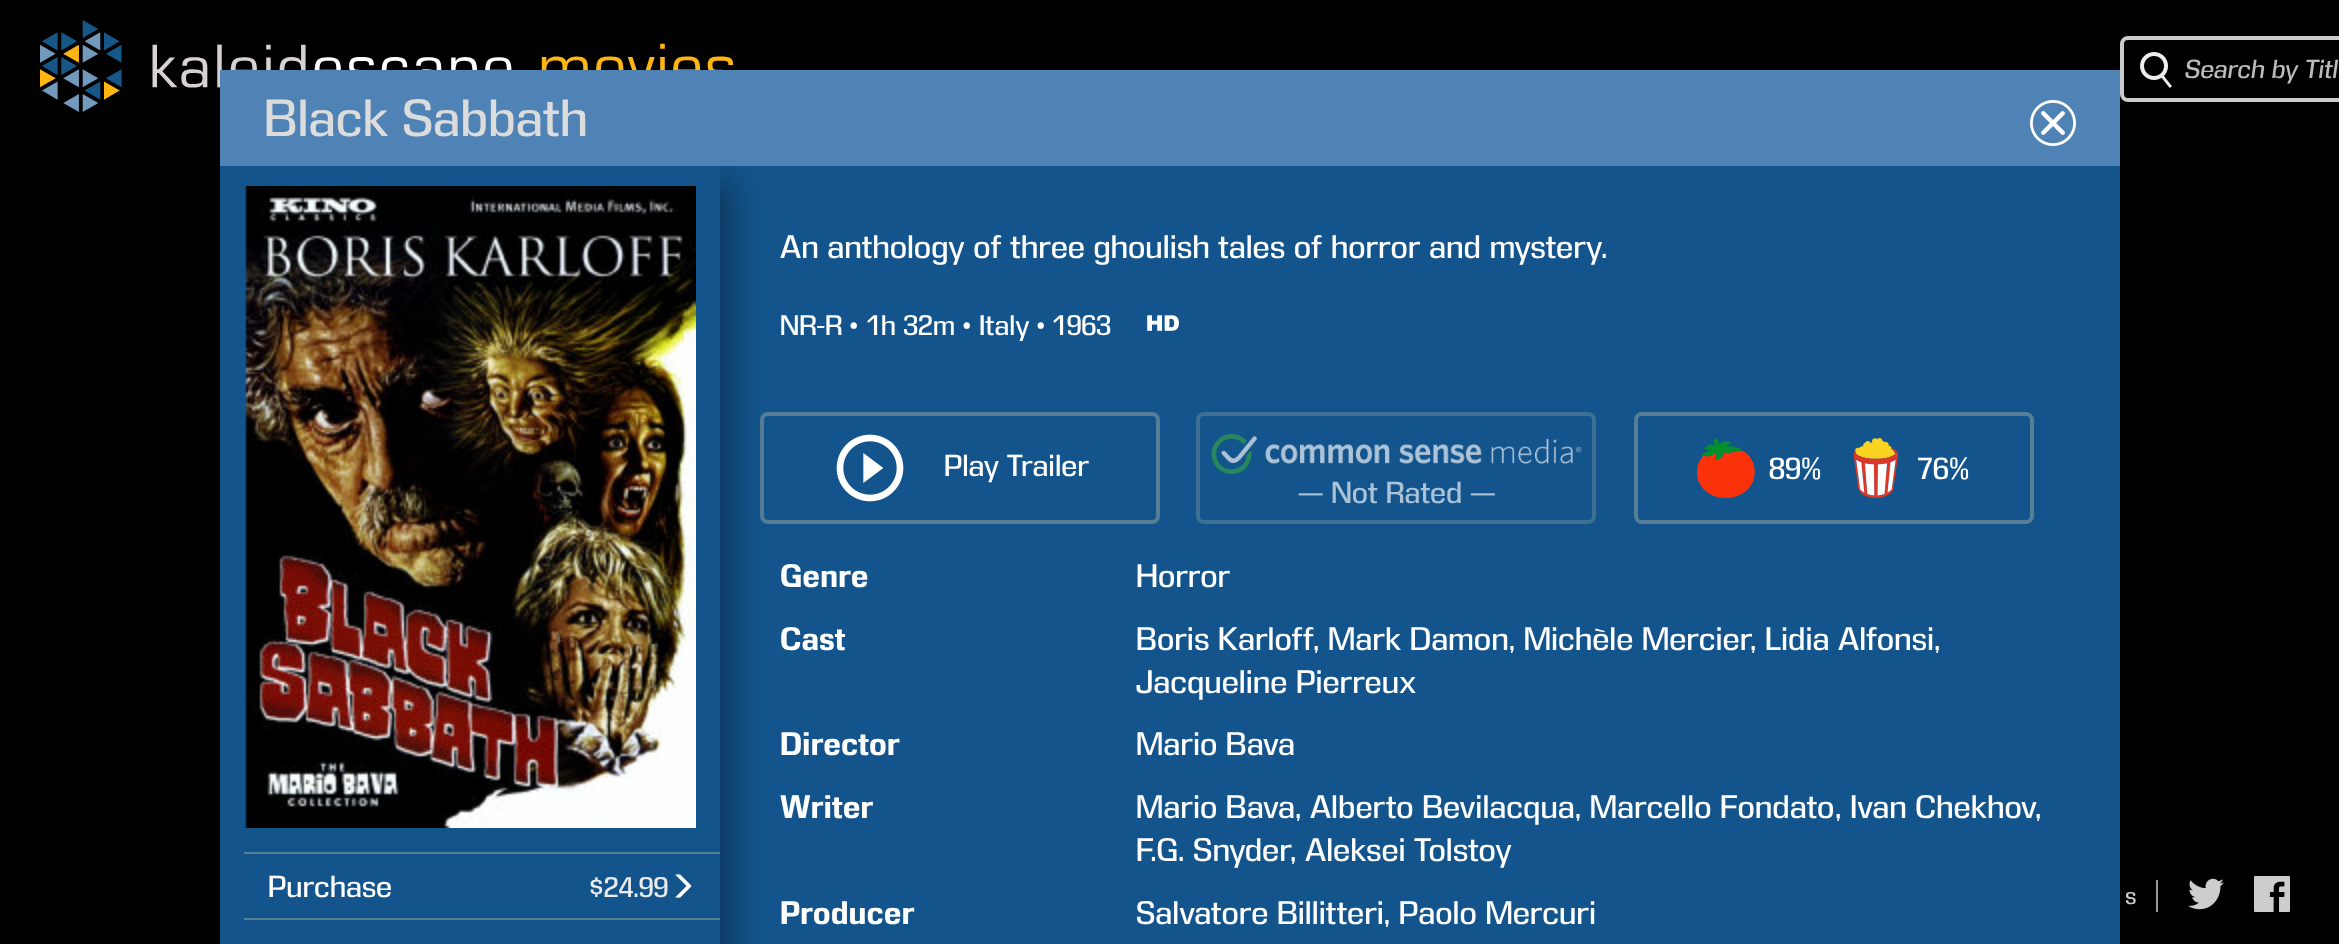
<svg xmlns="http://www.w3.org/2000/svg" xmlns:xlink="http://www.w3.org/1999/xlink" width="2339" height="944" viewBox="0 0 2339 944">
<style>
.cls-1{font:48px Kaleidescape;fill:#dcdcdc}
.cls-2{font:28px Kaleidescape;fill:#ffffff}
.cls-3{font:26px Kaleidescape;fill:#ebebeb}
.cls-4{font:30px Kaleidescape;fill:#ffffff}
.cls-5{font:26px Kaleidescape;fill:#ffffff}
.cls-6{font:28px Kaleidescape;fill:#acc3d7}
.cls-7{font:bold 30px Kaleidescape;fill:#ffffff}
.cls-8{font:italic 24px Kaleidescape;fill:#bbbbbb}
.cls-9{font:22px Kaleidescape;fill:#cecdcd}
</style>
<defs>
<clipPath id="clip1"><rect x="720" y="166" width="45" height="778"/></clipPath>
</defs>
<rect width="100%" height="100%" fill="#000000"/>
<rect fill="#13548c" x="220" y="166" width="1900" height="778"/>
<rect fill="none" stroke="#567e95" stroke-width="4" x="762" y="414" width="396" height="108" rx="6"/>
<g clip-path="url(#clip1)">
<rect fill="#0d395f" filter="blur(15px)" x="266" y="182" width="468" height="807"/>
</g>
<image xlink:href="image8.png" x="40" y="20" width="694" height="92"/>
<rect fill="#4f83b6" x="220" y="70" width="1900" height="96"/>
<image xlink:href="image0.png" x="2030" y="100" width="46" height="46"/>
<image xlink:href="image1.png" x="245" y="186" width="451" height="642"/>
<rect fill="#567e95" x="244" y="852" width="476" height="2"/>
<image xlink:href="image2.png" x="675" y="874" width="17" height="24"/>
<rect fill="#567e95" x="244" y="918" width="476" height="2"/>
<image xlink:href="image3.png" x="1147" y="315" width="32" height="16"/>
<image xlink:href="image4.png" x="836" y="434" width="68" height="68"/>
<rect fill="none" stroke="#567e95" stroke-width="4" x="1636" y="414" width="396" height="108" rx="6"/>
<image xlink:href="image5.png" x="1697" y="438" width="58" height="60"/>
<image xlink:href="image6.png" x="1853" y="438" width="46" height="60"/>
<rect fill="none" stroke="#3f6f92" stroke-width="4" x="1198" y="414" width="396" height="108" rx="6"/>
<image xlink:href="image7.png" x="1211" y="434" width="371" height="40"/>
<image xlink:href="image9.png" x="2140" y="52" width="32" height="36"/>
<rect fill="none" stroke="#cbcbcb" stroke-width="4" x="2122" y="38" width="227" height="62" rx="6"/>
<rect fill="#999999" x="2156" y="880" width="2" height="32"/>
<image xlink:href="image10.png" x="2188" y="878" width="36" height="32"/>
<image xlink:href="image11.png" x="2254" y="876" width="36" height="36"/>
<text class="cls-1" x="264" y="136">Black Sabbath</text>
<text class="cls-2" x="268" y="897">Purchase</text>
<text class="cls-3" x="589" y="897">$24.99</text>
<text class="cls-4" x="780" y="258">An anthology of three ghoulish tales of horror and mystery.</text>
<text class="cls-5" x="780" y="335">NR-R</text>
<text class="cls-5" x="850" y="335">•</text>
<text class="cls-5" x="866" y="335">1h 32m</text>
<text class="cls-5" x="963" y="335">•</text>
<text class="cls-5" x="979" y="335">Italy</text>
<text class="cls-5" x="1037" y="335">•</text>
<text class="cls-5" x="1052" y="335">1963</text>
<text class="cls-2" x="944" y="476">Play Trailer</text>
<text class="cls-2" x="1769" y="479">89%</text>
<text class="cls-2" x="1917" y="479">76%</text>
<text class="cls-6" x="1298" y="503">— Not Rated —</text>
<text class="cls-7" x="780" y="587">Genre</text>
<text class="cls-4" x="1136" y="587">Horror</text>
<text class="cls-7" x="780" y="650">Cast</text>
<text class="cls-4" x="1136" y="650">Boris Karloff</text>
<text class="cls-4" x="1313" y="650">, Mark Damon, Michèle Mercier</text>
<text class="cls-4" x="1750" y="650">, Lidia Alfonsi,</text>
<text class="cls-4" x="1136" y="693">Jacqueline Pierreux</text>
<text class="cls-7" x="780" y="755">Director</text>
<text class="cls-4" x="1136" y="755">Mario Bava</text>
<text class="cls-7" x="780" y="818">Writer</text>
<text class="cls-4" x="1136" y="818">Mario Bava, Alberto Bevilacqua, Marcello Fondato</text>
<text class="cls-4" x="1835" y="818">, Ivan Chekhov</text>
<text class="cls-4" x="2035" y="818">,</text>
<text class="cls-4" x="1136" y="861">F.G. Snyder</text>
<text class="cls-4" x="1290" y="861">, Aleksei Tolstoy</text>
<text class="cls-7" x="780" y="924">Producer</text>
<text class="cls-4" x="1136" y="924">Salvatore Billitteri, Paolo Mercuri</text>
<text class="cls-8" x="2184" y="78">Search by Titl</text>
<text class="cls-9" x="2125" y="904">s</text>
</svg>
